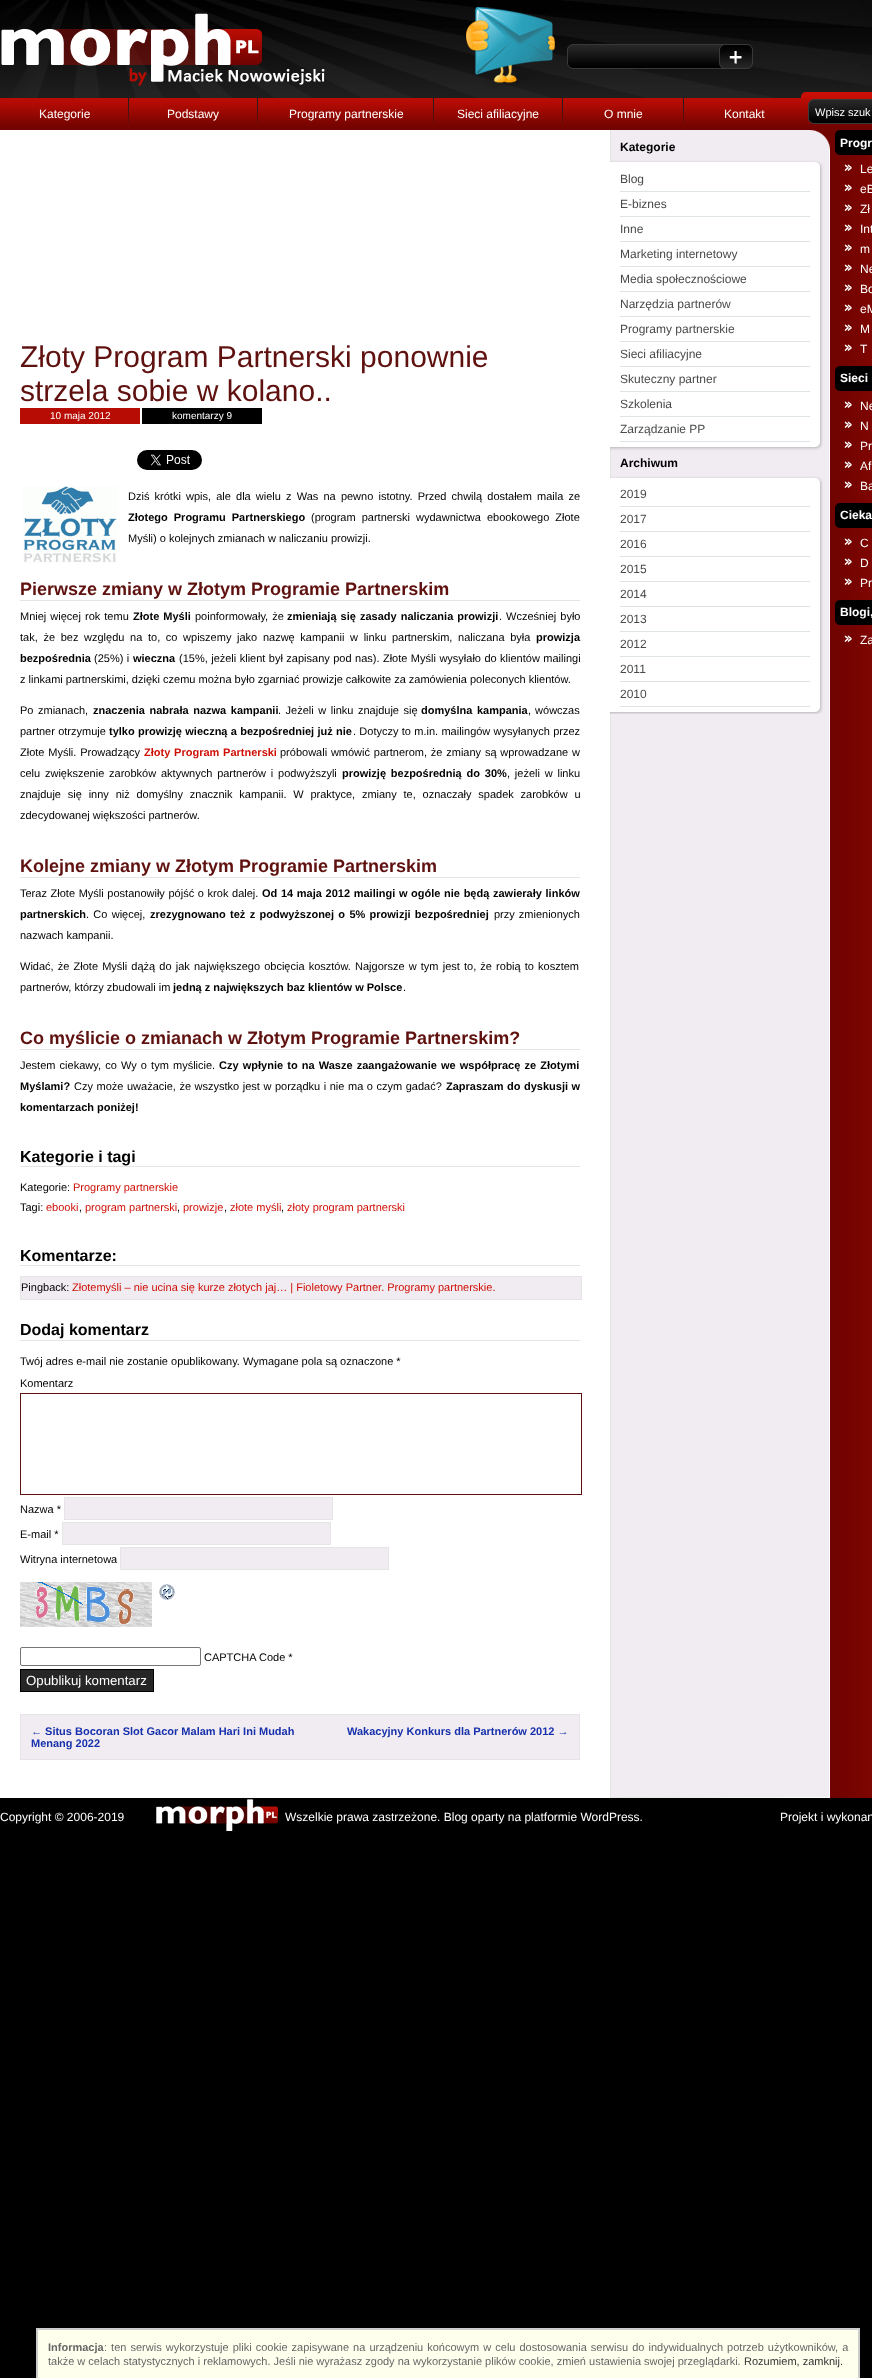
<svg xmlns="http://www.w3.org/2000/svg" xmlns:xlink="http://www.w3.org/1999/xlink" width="872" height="2378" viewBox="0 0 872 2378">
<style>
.cls-1{font:12px Liberation Sans;fill:#ffffff}
.cls-2{font:11px Liberation Sans;fill:#ffffff}
.cls-3{font:30px Liberation Sans;fill:#5f110f}
.cls-4{font:10px Liberation Sans;fill:#ffffff}
.cls-5{font:11px Liberation Sans;fill:#000000}
.cls-6{font:bold 11px Liberation Sans;fill:#000000}
.cls-7{font:bold 18px Liberation Sans;fill:#5f110f}
.cls-8{font:bold 11px Liberation Sans;fill:#cf0f06}
.cls-9{font:bold 16px Liberation Sans;fill:#000000}
.cls-10{font:11px Liberation Sans;fill:#cf0f06}
.cls-11{font:13.25px Liberation Sans;fill:#ffffff}
.cls-12{font:bold 11px Liberation Sans;fill:#1730ab}
.cls-13{font:bold 12px Liberation Sans;fill:#000000}
.cls-14{font:12px Liberation Sans;fill:#494949}
.cls-15{font:bold 12px Liberation Sans;fill:#ffffff}
.cls-16{font:bold 11px Liberation Sans;fill:#666666}
.cls-17{font:11px Liberation Sans;fill:#666666}
.cls-18{font:11px Liberation Sans;fill:#333333}
</style>
<rect width="100%" height="100%" fill="#000000"/>
<image xlink:href="image0.png" x="0" y="0" width="330" height="98"/>
<image xlink:href="image1.png" x="330" y="0" width="542" height="98"/>
<image xlink:href="image2.png" x="0" y="98" width="807" height="32"/>
<image xlink:href="image3.png" x="128" y="98" width="1" height="32"/>
<image xlink:href="image3.png" x="257" y="98" width="1" height="32"/>
<image xlink:href="image3.png" x="433" y="98" width="1" height="32"/>
<image xlink:href="image3.png" x="562" y="98" width="1" height="32"/>
<image xlink:href="image3.png" x="683" y="98" width="1" height="32"/>
<image xlink:href="image4.png" x="807" y="98" width="65" height="32"/>
<image xlink:href="image5.png" x="0" y="130" width="872" height="1660"/>
<rect fill="#b70c04" x="20" y="408" width="120" height="16"/>
<rect fill="#000000" x="142" y="408" width="120" height="16"/>
<image xlink:href="image6.png" x="137" y="450" width="65" height="20"/>
<image xlink:href="image7.png" x="23" y="486" width="94" height="77"/>
<rect fill="#e5e5e5" x="20" y="600" width="560" height="1"/>
<rect fill="#e5e5e5" x="20" y="877" width="560" height="1"/>
<rect fill="#e5e5e5" x="20" y="1049" width="560" height="1"/>
<rect fill="#e5e5e5" x="20" y="1166" width="560" height="1"/>
<rect fill="#e5e5e5" x="20" y="1265" width="560" height="1"/>
<rect fill="#f1ecf2" stroke="#e5e5e5" x="20.5" y="1276.5" width="561" height="23"/>
<rect fill="#e5e5e5" x="20" y="1340" width="560" height="1"/>
<rect fill="none" stroke="#5f110f" x="20.5" y="1393.5" width="561" height="101"/>
<rect fill="#f1ecf2" stroke="#e5e5e5" x="64.5" y="1497.5" width="268" height="22"/>
<rect fill="#f1ecf2" stroke="#e5e5e5" x="62.5" y="1522.5" width="268" height="22"/>
<rect fill="#f1ecf2" stroke="#e5e5e5" x="120.5" y="1547.5" width="268" height="22"/>
<image xlink:href="image8.png" x="20" y="1582" width="132" height="45"/>
<image xlink:href="image9.png" x="159" y="1584" width="16" height="16"/>
<rect fill="none" stroke="#767676" x="20.5" y="1647.5" width="180" height="18" rx="1.5"/>
<rect fill="#262626" stroke="#000000" x="20.5" y="1669.5" width="133" height="22"/>
<rect fill="#f1ecf2" stroke="#e5e5e5" x="20.5" y="1714.5" width="559" height="45"/>
<image xlink:href="image10.png" x="610" y="130" width="220" height="37"/>
<image xlink:href="image11.png" x="610" y="167" width="213" height="275"/>
<rect fill="#dfe4e6" x="620" y="191" width="190" height="1"/>
<rect fill="#dfe4e6" x="620" y="216" width="190" height="1"/>
<rect fill="#dfe4e6" x="620" y="241" width="190" height="1"/>
<rect fill="#dfe4e6" x="620" y="266" width="190" height="1"/>
<rect fill="#dfe4e6" x="620" y="291" width="190" height="1"/>
<rect fill="#dfe4e6" x="620" y="316" width="190" height="1"/>
<rect fill="#dfe4e6" x="620" y="341" width="190" height="1"/>
<rect fill="#dfe4e6" x="620" y="366" width="190" height="1"/>
<rect fill="#dfe4e6" x="620" y="391" width="190" height="1"/>
<rect fill="#dfe4e6" x="620" y="416" width="190" height="1"/>
<rect fill="#dfe4e6" x="620" y="441" width="190" height="1"/>
<image xlink:href="image12.png" x="610" y="442" width="213" height="40"/>
<image xlink:href="image13.png" x="610" y="482" width="213" height="225"/>
<rect fill="#dfe4e6" x="620" y="506" width="190" height="1"/>
<rect fill="#dfe4e6" x="620" y="531" width="190" height="1"/>
<rect fill="#dfe4e6" x="620" y="556" width="190" height="1"/>
<rect fill="#dfe4e6" x="620" y="581" width="190" height="1"/>
<rect fill="#dfe4e6" x="620" y="606" width="190" height="1"/>
<rect fill="#dfe4e6" x="620" y="631" width="190" height="1"/>
<rect fill="#dfe4e6" x="620" y="656" width="190" height="1"/>
<rect fill="#dfe4e6" x="620" y="681" width="190" height="1"/>
<rect fill="#dfe4e6" x="620" y="706" width="190" height="1"/>
<image xlink:href="image14.png" x="610" y="707" width="213" height="7"/>
<image xlink:href="image15.png" x="835" y="130" width="37" height="25"/>
<image xlink:href="image16.png" x="844" y="164" width="8" height="7"/>
<image xlink:href="image16.png" x="844" y="184" width="8" height="7"/>
<image xlink:href="image16.png" x="844" y="204" width="8" height="7"/>
<image xlink:href="image16.png" x="844" y="224" width="8" height="7"/>
<image xlink:href="image16.png" x="844" y="244" width="8" height="7"/>
<image xlink:href="image16.png" x="844" y="264" width="8" height="7"/>
<image xlink:href="image16.png" x="844" y="284" width="8" height="7"/>
<image xlink:href="image16.png" x="844" y="304" width="8" height="7"/>
<image xlink:href="image16.png" x="844" y="324" width="8" height="7"/>
<image xlink:href="image16.png" x="844" y="344" width="8" height="7"/>
<image xlink:href="image15.png" x="835" y="366" width="37" height="25"/>
<image xlink:href="image16.png" x="844" y="401" width="8" height="7"/>
<image xlink:href="image16.png" x="844" y="421" width="8" height="7"/>
<image xlink:href="image16.png" x="844" y="441" width="8" height="7"/>
<image xlink:href="image16.png" x="844" y="461" width="8" height="7"/>
<image xlink:href="image16.png" x="844" y="481" width="8" height="7"/>
<image xlink:href="image15.png" x="835" y="503" width="37" height="25"/>
<image xlink:href="image16.png" x="844" y="538" width="8" height="7"/>
<image xlink:href="image16.png" x="844" y="558" width="8" height="7"/>
<image xlink:href="image16.png" x="844" y="578" width="8" height="7"/>
<image xlink:href="image15.png" x="835" y="600" width="37" height="25"/>
<image xlink:href="image16.png" x="844" y="635" width="8" height="7"/>
<image xlink:href="image17.png" x="0" y="1790" width="872" height="8"/>
<image xlink:href="image18.png" x="156" y="1799" width="122" height="32"/>
<rect fill="#ffffee" x="38" y="2330" width="820" height="48"/>
<rect fill="#cccccc" x="36" y="2328" width="824" height="2"/>
<rect fill="#cccccc" x="858" y="2328" width="2" height="50"/>
<rect fill="#cccccc" x="36" y="2328" width="2" height="50"/>
<text class="cls-1" x="39" y="118">Kategorie</text>
<text class="cls-1" x="167" y="118">Podstawy</text>
<text class="cls-1" x="289" y="118">Programy partnerskie</text>
<text class="cls-1" x="457" y="118">Sieci afiliacyjne</text>
<text class="cls-1" x="604" y="118">O mnie</text>
<text class="cls-1" x="724" y="118">Kontakt</text>
<text class="cls-2" x="815" y="116">Wpisz szuk</text>
<text class="cls-3"><tspan x="20" y="367">Złoty Program Partnerski ponownie</tspan><tspan x="20" y="401">strzela sobie w kolano..</tspan></text>
<text class="cls-4" x="50" y="419">10 maja 2012</text>
<text class="cls-4" x="172" y="419">komentarzy 9</text>
<text class="cls-5" x="128" y="500" word-spacing="2.1">Dziś krótki wpis, ale dla wielu z Was na pewno istotny. Przed chwilą dostałem maila ze</text>
<text class="cls-6" x="128" y="521" word-spacing="3">Złotego Programu Partnerskiego</text>
<text class="cls-5" x="311" y="521" word-spacing="3">(program partnerski wydawnictwa ebookowego Złote</text>
<text class="cls-5" x="128" y="542">Myśli) o kolejnych zmianach w naliczaniu prowizji.</text>
<text class="cls-7" x="20" y="595">Pierwsze zmiany w Złotym Programie Partnerskim</text>
<text class="cls-5" x="20" y="620" word-spacing="1">Mniej więcej rok temu</text>
<text class="cls-6" x="133" y="620" word-spacing="1">Złote Myśli</text>
<text class="cls-5" x="195" y="620" word-spacing="1">poinformowały, że</text>
<text class="cls-6" x="287" y="620" word-spacing="1">zmieniają się zasady naliczania prowizji</text>
<text class="cls-5" x="499" y="620" word-spacing="1">. Wcześniej było</text>
<text class="cls-5" x="20" y="641" word-spacing="2.6">tak, że bez względu na to, co wpiszemy jako nazwę kampanii w linku partnerskim, naliczana była</text>
<text class="cls-6" x="536" y="641">prowizja</text>
<text class="cls-6" x="20" y="662">bezpośrednia</text>
<text class="cls-5" x="94" y="662" word-spacing="0.4">(25%) i</text>
<text class="cls-6" x="133" y="662">wieczna</text>
<text class="cls-5" x="179" y="662" word-spacing="0.4">(15%, jeżeli klient był zapisany pod nas). Złote Myśli wysyłało do klientów mailingi</text>
<text class="cls-5" x="20" y="683">z linkami partnerskimi, dzięki czemu można było zgarniać prowizje całkowite za zamówienia poleconych klientów.</text>
<text class="cls-5" x="20" y="714" word-spacing="1.5">Po zmianach,</text>
<text class="cls-6" x="93" y="714" word-spacing="1.5">znaczenia nabrała nazwa kampanii</text>
<text class="cls-5" x="278" y="714" word-spacing="1.5">. Jeżeli w linku znajduje się</text>
<text class="cls-6" x="421" y="714" word-spacing="1.5">domyślna kampania</text>
<text class="cls-5" x="528" y="714" word-spacing="1">, wówczas</text>
<text class="cls-5" x="20" y="735" word-spacing="0.25">partner otrzymuje</text>
<text class="cls-6" x="109" y="735" word-spacing="0.25">tylko prowizję wieczną a bezpośredniej już nie</text>
<text class="cls-5" x="353" y="735" word-spacing="0.25">. Dotyczy to m.in. mailingów wysyłanych przez</text>
<text class="cls-5" x="20" y="756" word-spacing="0.75">Złote Myśli. Prowadzący</text>
<text class="cls-8" x="144" y="756" word-spacing="0.75">Złoty Program Partnerski</text>
<text class="cls-5" x="280" y="756" word-spacing="0.75">próbowali wmówić partnerom, że zmiany są wprowadzane w</text>
<text class="cls-5" x="20" y="777" word-spacing="1.75">celu zwiększenie zarobków aktywnych partnerów i podwyższyli</text>
<text class="cls-6" x="342" y="777" word-spacing="1.75">prowizję bezpośrednią do 30%</text>
<text class="cls-5" x="507" y="777" word-spacing="1.75">, jeżeli w linku</text>
<text class="cls-5"><tspan x="20" y="798" word-spacing="3.75">znajduje się inny niż domyślny znacznik kampanii. W praktyce, zmiany te, oznaczały spadek zarobków u</tspan><tspan x="20" y="819">zdecydowanej większości partnerów.</tspan></text>
<text class="cls-7" x="20" y="872">Kolejne zmiany w Złotym Programie Partnerskim</text>
<text class="cls-5" x="20" y="897" word-spacing="0.6">Teraz Złote Myśli postanowiły pójść o krok dalej.</text>
<text class="cls-6" x="262" y="897" word-spacing="0.6">Od 14 maja 2012 mailingi w ogóle nie będą zawierały linków</text>
<text class="cls-6" x="20" y="918">partnerskich</text>
<text class="cls-5" x="86" y="918" word-spacing="1.25">. Co więcej,</text>
<text class="cls-6" x="150" y="918" word-spacing="1.25">zrezygnowano też z podwyższonej o 5% prowizji bezpośredniej</text>
<text class="cls-5" x="494" y="918" word-spacing="1">przy zmienionych</text>
<text class="cls-5" x="20" y="939">nazwach kampanii.</text>
<text class="cls-5"><tspan x="20" y="970" word-spacing="1.1">Widać, że Złote Myśli dążą do jak największego obcięcia kosztów. Najgorsze w tym jest to, że robią to kosztem</tspan><tspan x="20" y="991">partnerów, którzy zbudowali im</tspan></text>
<text class="cls-6" x="173" y="991">jedną z największych baz klientów w Polsce</text>
<text class="cls-5" x="403" y="991">.</text>
<text class="cls-7" x="20" y="1044">Co myślicie o zmianach w Złotym Programie Partnerskim?</text>
<text class="cls-5" x="20" y="1069" word-spacing="1.1">Jestem ciekawy, co Wy o tym myślicie.</text>
<text class="cls-6" x="219" y="1069" word-spacing="1.1">Czy wpłynie to na Wasze zaangażowanie we współpracę ze Złotymi</text>
<text class="cls-6" x="20" y="1090">Myślami?</text>
<text class="cls-5" x="74" y="1090" word-spacing="0.5">Czy może uważacie, że wszystko jest w porządku i nie ma o czym gadać?</text>
<text class="cls-6" x="446" y="1090" word-spacing="0.5">Zapraszam do dyskusji w</text>
<text class="cls-6" x="20" y="1111">komentarzach poniżej!</text>
<text class="cls-9" x="20" y="1162">Kategorie i tagi</text>
<text class="cls-5" x="20" y="1191">Kategorie:</text>
<text class="cls-10" x="73" y="1191">Programy partnerskie</text>
<text class="cls-5" x="20" y="1211">Tagi:</text>
<text class="cls-10" x="46" y="1211">ebooki</text>
<text class="cls-5" x="79" y="1211">,</text>
<text class="cls-10" x="85" y="1211">program partnerski</text>
<text class="cls-5" x="177" y="1211">,</text>
<text class="cls-10" x="183" y="1211">prowizje</text>
<text class="cls-5" x="224" y="1211">,</text>
<text class="cls-10" x="230" y="1211">złote myśli</text>
<text class="cls-5" x="281" y="1211">,</text>
<text class="cls-10" x="287" y="1211">złoty program partnerski</text>
<text class="cls-9" x="20" y="1261">Komentarze:</text>
<text class="cls-5" x="21" y="1291">Pingback:</text>
<text class="cls-10" x="72" y="1291">Złotemyśli – nie ucina się kurze złotych jaj… | Fioletowy Partner. Programy partnerskie.</text>
<text class="cls-9" x="20" y="1335">Dodaj komentarz</text>
<text class="cls-5" x="20" y="1365">Twój adres e-mail nie zostanie opublikowany. Wymagane pola są oznaczone *</text>
<text class="cls-5" x="20" y="1387">Komentarz</text>
<text class="cls-5" x="20" y="1513">Nazwa *</text>
<text class="cls-5" x="20" y="1538">E-mail *</text>
<text class="cls-5" x="20" y="1563">Witryna internetowa</text>
<text class="cls-5" x="204" y="1661">CAPTCHA Code *</text>
<text class="cls-11" x="26" y="1685">Opublikuj komentarz</text>
<text class="cls-12"><tspan x="31" y="1735">← Situs Bocoran Slot Gacor Malam Hari Ini Mudah</tspan><tspan x="31" y="1747">Menang 2022</tspan></text>
<text class="cls-12" x="347" y="1735">Wakacyjny Konkurs dla Partnerów 2012 →</text>
<text class="cls-13" x="620" y="151">Kategorie</text>
<text class="cls-14" x="620" y="183">Blog</text>
<text class="cls-14" x="620" y="208">E-biznes</text>
<text class="cls-14" x="620" y="233">Inne</text>
<text class="cls-14" x="620" y="258">Marketing internetowy</text>
<text class="cls-14" x="620" y="283">Media społecznościowe</text>
<text class="cls-14" x="620" y="308">Narzędzia partnerów</text>
<text class="cls-14" x="620" y="333">Programy partnerskie</text>
<text class="cls-14" x="620" y="358">Sieci afiliacyjne</text>
<text class="cls-14" x="620" y="383">Skuteczny partner</text>
<text class="cls-14" x="620" y="408">Szkolenia</text>
<text class="cls-14" x="620" y="433">Zarządzanie PP</text>
<text class="cls-13" x="620" y="467">Archiwum</text>
<text class="cls-14" x="620" y="498">2019</text>
<text class="cls-14" x="620" y="523">2017</text>
<text class="cls-14" x="620" y="548">2016</text>
<text class="cls-14" x="620" y="573">2015</text>
<text class="cls-14" x="620" y="598">2014</text>
<text class="cls-14" x="620" y="623">2013</text>
<text class="cls-14" x="620" y="648">2012</text>
<text class="cls-14" x="620" y="673">2011</text>
<text class="cls-14" x="620" y="698">2010</text>
<text class="cls-15" x="840" y="147">Progr</text>
<text class="cls-1"><tspan x="860" y="173">Le</tspan><tspan x="860" y="193">eB</tspan><tspan x="860" y="213">Zł</tspan><tspan x="860" y="233">Int</tspan><tspan x="860" y="253">m</tspan><tspan x="860" y="273">Ne</tspan><tspan x="860" y="293">Bo</tspan><tspan x="860" y="313">eM</tspan><tspan x="860" y="333">M</tspan><tspan x="860" y="353">T</tspan></text>
<text class="cls-15" x="840" y="382">Sieci</text>
<text class="cls-1"><tspan x="860" y="410">Ne</tspan><tspan x="860" y="430">N</tspan><tspan x="860" y="450">Pr</tspan><tspan x="860" y="470">Af</tspan><tspan x="860" y="490">Ba</tspan></text>
<text class="cls-15" x="840" y="519">Cieka</text>
<text class="cls-1"><tspan x="860" y="547">C</tspan><tspan x="860" y="567">D</tspan><tspan x="860" y="587">Pr</tspan></text>
<text class="cls-15" x="840" y="616">Blogi,</text>
<text class="cls-1" x="860" y="644">Za</text>
<text class="cls-1" x="0" y="1821">Copyright © 2006-2019</text>
<text class="cls-1" x="285" y="1821">Wszelkie prawa zastrzeżone. Blog oparty na platformie WordPress.</text>
<text class="cls-1" x="780" y="1821">Projekt i wykonan</text>
<text class="cls-16" x="48" y="2351">Informacja</text>
<text class="cls-17" x="104" y="2351" word-spacing="1">: ten serwis wykorzystuje pliki cookie zapisywane na urządzeniu końcowym w celu dostosowania serwisu do indywidualnych potrzeb użytkowników, a</text>
<text class="cls-17" x="48" y="2365">także w celach statystycznych i reklamowych. Jeśli nie wyrażasz zgody na wykorzystanie plików cookie, zmień ustawienia swojej przeglądarki.</text>
<text class="cls-18" x="744" y="2365">Rozumiem, zamknij.</text>
</svg>
